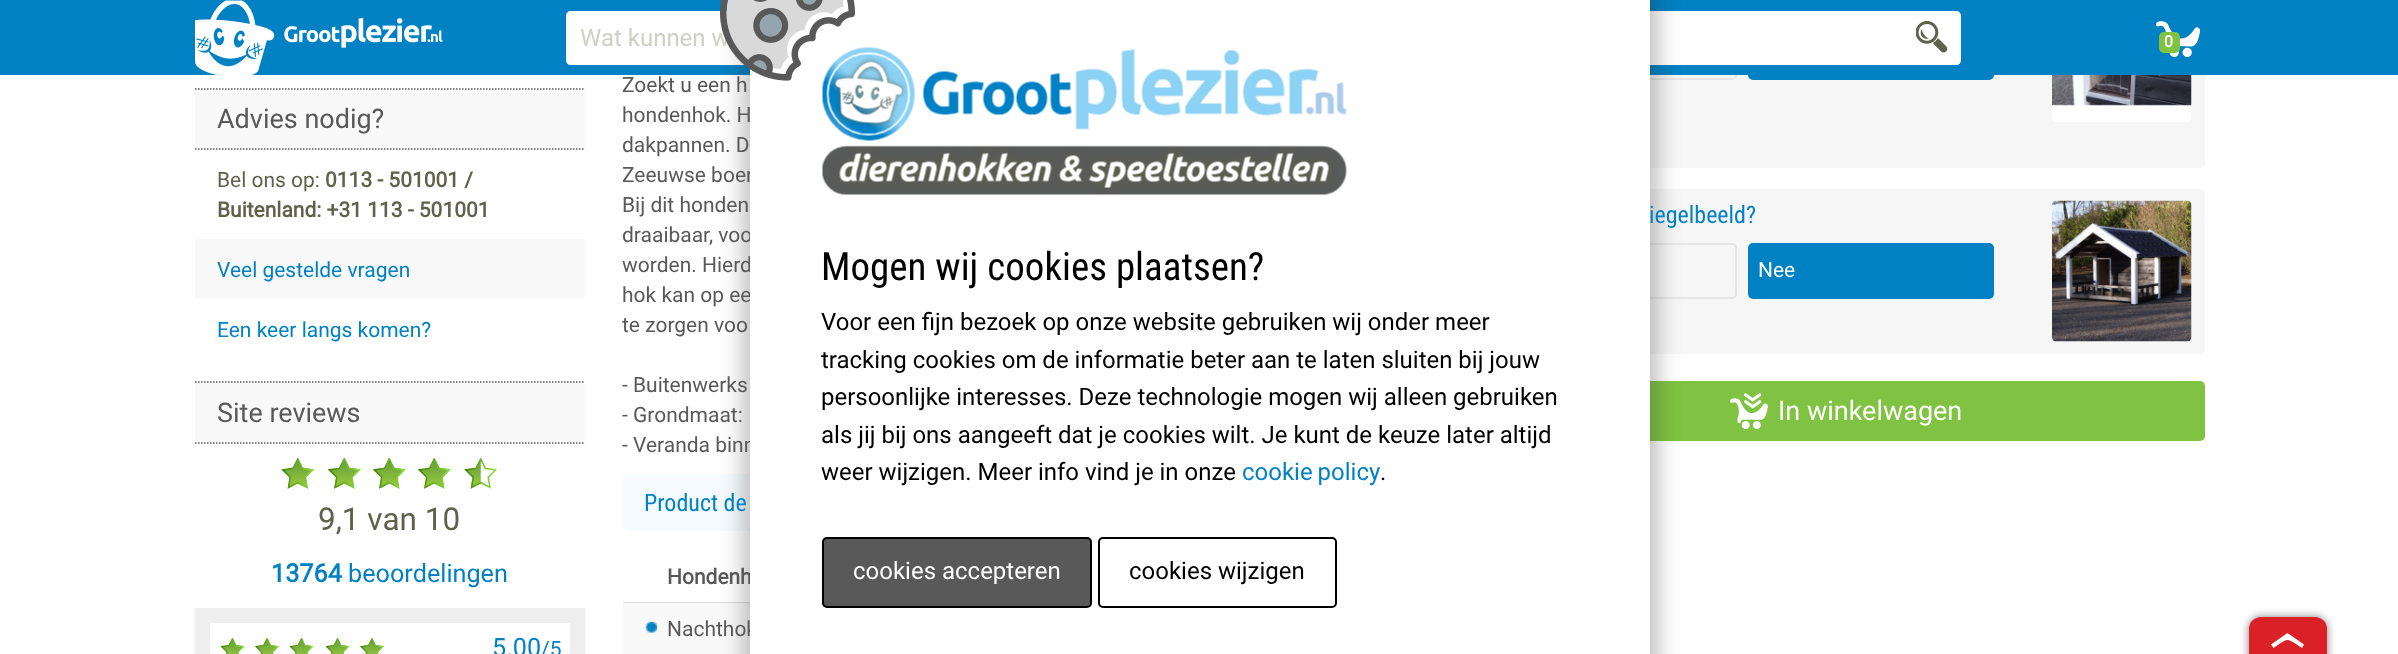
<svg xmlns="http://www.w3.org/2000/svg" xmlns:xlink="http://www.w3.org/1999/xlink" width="2398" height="654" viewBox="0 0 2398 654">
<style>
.cls-1{font:24px Roboto;fill:#cfcfc7}
.cls-2{font:bold 16px Roboto;fill:#ffffff}
.cls-3{font:27px Roboto;fill:#595959}
.cls-4{font:21px Roboto;fill:#5f614b}
.cls-5{font:bold 21px Roboto;fill:#5f614b}
.cls-6{font:21px Roboto;fill:#0081c4}
.cls-7{font:31.5px Roboto;fill:#5f614b}
.cls-8{font:bold 25.25px Roboto;fill:#0081c4}
.cls-9{font:25.25px Roboto;fill:#0081c4}
.cls-10{font:21px Roboto;fill:#595959}
.cls-11{font:24px Roboto Condensed;fill:#0081c4}
.cls-12{font:bold 21px Roboto;fill:#595959}
.cls-13{font:21px Roboto;fill:#ffffff}
.cls-14{font:27px Roboto;fill:#ffffff}
.cls-15{font:39px Roboto Condensed;fill:#000000}
.cls-16{font:24px Roboto;fill:#000000}
.cls-17{font:24px Roboto;fill:#0081c4}
.cls-18{font:24px Roboto;fill:#ffffff}
</style>
<rect width="100%" height="100%" fill="#ffffff"/>
<rect fill="#f6f6f6" x="1479" y="-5" width="726" height="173" rx="5"/>
<rect fill="none" stroke="#e5e5e5" stroke-width="2" x="1492" y="25" width="244" height="54" rx="4"/>
<rect fill="#0081c4" x="1748" y="24" width="246" height="56" rx="5"/>
<rect fill="#0081c4" x="0" y="0" width="2398" height="75"/>
<image xlink:href="image0.png" x="195" y="0" width="248" height="75"/>
<path fill="#ffffff" d="M571 11H1907V65H571C568 65 566 63 566 60V16C566 13 568 11 571 11Z"/>
<path fill="#ffffff" d="M1907 11H1956C1959 11 1961 13 1961 16V60C1961 63 1959 65 1956 65H1907Z"/>
<image xlink:href="image1.png" x="1916" y="21" width="32" height="32"/>
<image xlink:href="image2.png" x="2156" y="21" width="44" height="36"/>
<rect fill="#80c342" x="2159" y="32" width="21" height="21" rx="5"/>
<rect fill="#f9f9f9" x="195" y="89" width="390" height="61"/>
<path fill="none" stroke="#595959" stroke-width="1.5" stroke-dasharray="1.5 1.5" d="M195 89H585"/>
<path fill="none" stroke="#595959" stroke-width="1.5" stroke-dasharray="1.5 1.5" d="M195 149H585"/>
<rect fill="#f9f9f9" x="195" y="239" width="390" height="60"/>
<rect fill="#f9f9f9" x="195" y="381" width="390" height="63"/>
<path fill="none" stroke="#595959" stroke-width="1.5" stroke-dasharray="1.5 1.5" d="M195 382H585"/>
<path fill="none" stroke="#595959" stroke-width="1.5" stroke-dasharray="1.5 1.5" d="M195 443H585"/>
<image xlink:href="image3.png" x="281" y="458" width="34" height="31"/>
<image xlink:href="image4.png" x="327" y="458" width="34" height="31"/>
<image xlink:href="image4.png" x="372" y="458" width="34" height="31"/>
<image xlink:href="image4.png" x="417" y="458" width="34" height="31"/>
<image xlink:href="image5.png" x="464" y="458" width="33" height="31"/>
<rect fill="#eeeeee" x="195" y="608" width="390" height="46"/>
<rect fill="#ffffff" x="210" y="623" width="360" height="31"/>
<image xlink:href="image6.png" x="221" y="638" width="24" height="16"/>
<image xlink:href="image7.png" x="255" y="638" width="24" height="16"/>
<image xlink:href="image6.png" x="290" y="638" width="24" height="16"/>
<image xlink:href="image6.png" x="326" y="638" width="24" height="16"/>
<image xlink:href="image7.png" x="360" y="638" width="24" height="16"/>
<rect fill="#f5fbfe" x="623" y="474" width="804" height="57" rx="5"/>
<rect fill="#d8d8d8" x="623" y="602" width="127" height="1"/>
<rect fill="#f9f9f9" x="623" y="603" width="127" height="51"/>
<image xlink:href="image8.png" x="645" y="622" width="12" height="11"/>
<image xlink:href="image9.png" x="2052" y="75" width="140" height="47"/>
<rect fill="#f6f6f6" x="1479" y="189" width="726" height="165" rx="5"/>
<rect fill="none" stroke="#e5e5e5" stroke-width="2" x="1492" y="244" width="244" height="54" rx="4"/>
<rect fill="#0081c4" x="1748" y="243" width="246" height="56" rx="5"/>
<image xlink:href="image10.png" x="2052" y="200" width="140" height="142"/>
<rect fill="#80c342" x="1479" y="381" width="726" height="60" rx="5"/>
<image xlink:href="image11.png" x="1730" y="393" width="38" height="36"/>
<rect fill="#292929" fill-opacity="0.3" filter="blur(11px)" x="743" y="-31" width="915" height="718" rx="15"/>
<rect fill="#000000" fill-opacity="0.5" filter="blur(4px)" x="2249" y="617" width="78" height="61" rx="12"/>
<rect fill="#da2128" x="2249" y="617" width="78" height="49" rx="12"/>
<path fill="#ffffff" d="M2287.5 633L2271 644.5L2273.5 648C2273.5 648 2284 640 2287.5 640C2291 640 2302 648 2302 648L2304 644.5Z"/>
<text class="cls-1" x="580" y="46">Wat kunnen w</text>
<text class="cls-2" x="2164" y="47">0</text>
<text class="cls-3" x="217" y="128">Advies nodig?</text>
<text class="cls-4" x="217" y="187">Bel ons op:</text>
<text class="cls-5" x="325" y="187">0113 - 501001 /</text>
<text class="cls-5" x="217" y="217">Buitenland: +31 113 - 501001</text>
<text class="cls-6" x="217" y="277">Veel gestelde vragen</text>
<text class="cls-6" x="217" y="337">Een keer langs komen?</text>
<text class="cls-3" x="217" y="422">Site reviews</text>
<text class="cls-7" x="318" y="530">9,1 van 10</text>
<text class="cls-8" x="271" y="582">13764</text>
<text class="cls-9" x="348" y="582">beoordelingen</text>
<text class="cls-9" x="492" y="656">5.00</text>
<text class="cls-6" x="541" y="656">/5</text>
<text class="cls-10"><tspan x="622" y="92">Zoekt u een h</tspan><tspan x="622" y="122">hondenhok. H</tspan><tspan x="622" y="152">dakpannen. D</tspan><tspan x="622" y="182">Zeeuwse boer</tspan><tspan x="622" y="212">Bij dit honden</tspan><tspan x="622" y="242">draaibaar, voo</tspan><tspan x="622" y="272">worden. Hierd</tspan><tspan x="622" y="302">hok kan op ee</tspan><tspan x="622" y="332">te zorgen voo</tspan></text>
<text class="cls-10"><tspan x="622" y="392">- Buitenwerks</tspan><tspan x="622" y="422">- Grondmaat:</tspan><tspan x="622" y="452">- Veranda binn</tspan></text>
<text class="cls-11" x="644" y="511">Product de</text>
<text class="cls-12" x="667" y="584">Hondenh</text>
<text class="cls-10" x="667" y="636">Nachthok</text>
<text class="cls-11" x="1649" y="223">iegelbeeld?</text>
<text class="cls-13" x="1758" y="277">Nee</text>
<text class="cls-14" x="1778" y="420">In winkelwagen</text>
<rect fill="#ffffff" x="750" y="0" width="900" height="654"/>
<image xlink:href="image13.png" x="822" y="47" width="525" height="148"/>
<image xlink:href="image12.png" x="720" y="0" width="135" height="81"/>
<text class="cls-15" x="821" y="280">Mogen wij cookies plaatsen?</text>
<text class="cls-16"><tspan x="821" y="330">Voor een fijn bezoek op onze website gebruiken wij onder meer</tspan><tspan x="821" y="368">tracking cookies om de informatie beter aan te laten sluiten bij jouw</tspan><tspan x="821" y="405">persoonlijke interesses. Deze technologie mogen wij alleen gebruiken</tspan><tspan x="821" y="443">als jij bij ons aangeeft dat je cookies wilt. Je kunt de keuze later altijd</tspan><tspan x="821" y="480">weer wijzigen. Meer info vind je in onze</tspan></text>
<text class="cls-17" x="1242" y="480" word-spacing="-1">cookie policy</text>
<text class="cls-16" x="1380" y="480">.</text>
<rect fill="#595959" stroke="#000000" stroke-width="2" x="823" y="538" width="268" height="69" rx="4"/>
<text class="cls-18" x="853" y="579">cookies accepteren</text>
<rect fill="none" stroke="#000000" stroke-width="2" x="1099" y="538" width="237" height="69" rx="4"/>
<text class="cls-16" x="1129" y="579">cookies wijzigen</text>
</svg>
